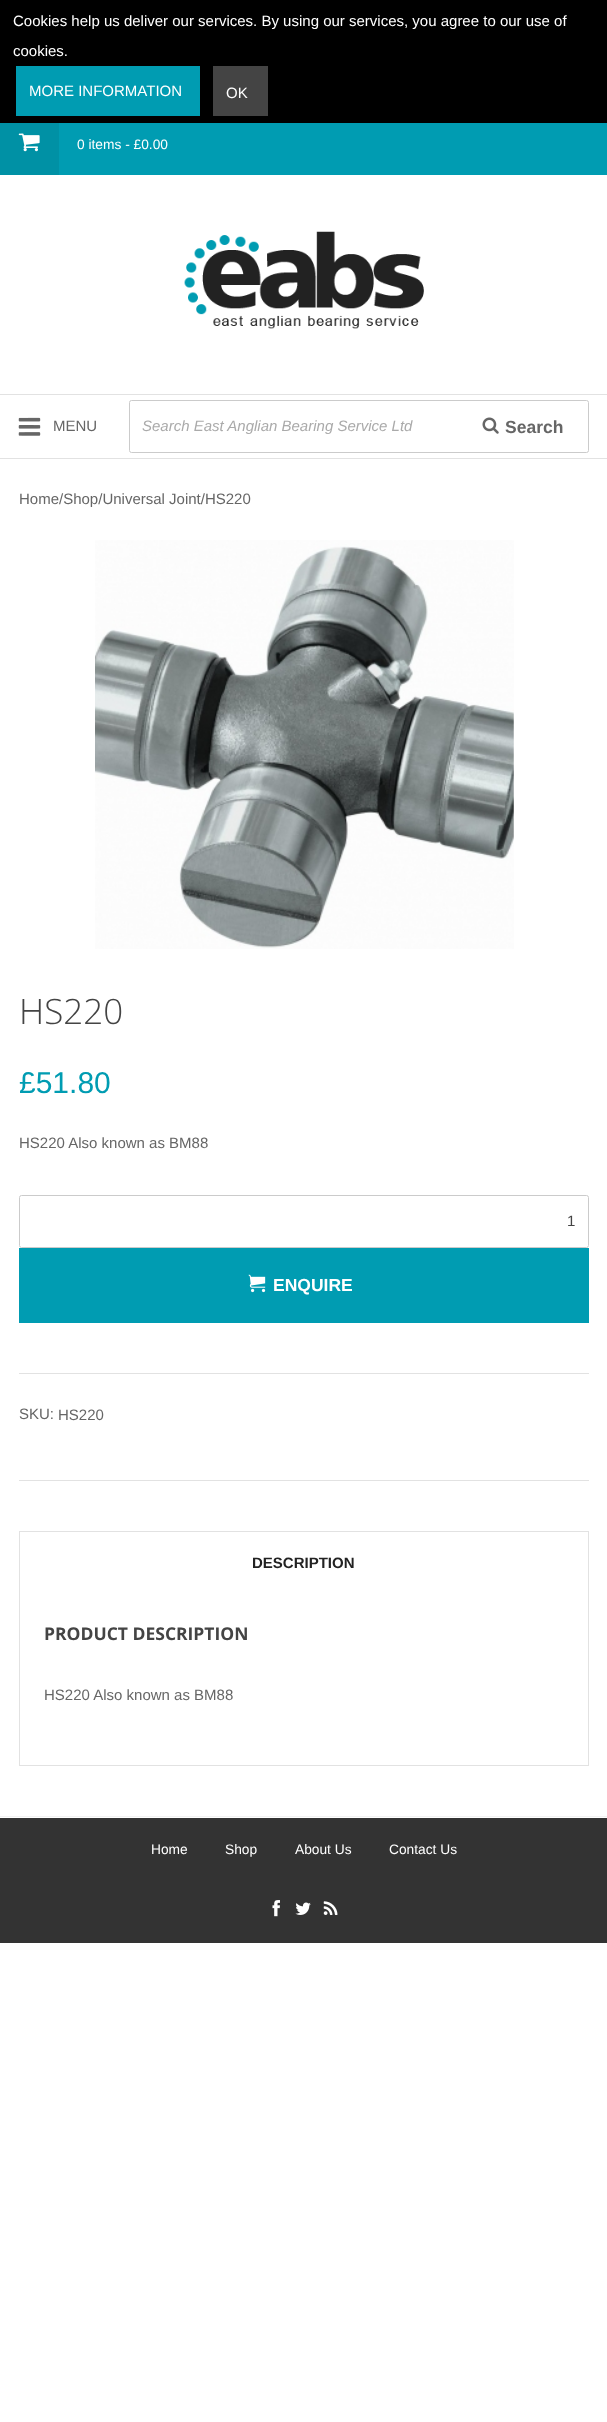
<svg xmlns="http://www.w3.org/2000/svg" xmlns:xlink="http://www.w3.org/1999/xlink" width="607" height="2422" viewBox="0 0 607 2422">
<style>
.cls-1{font:15px Liberation Sans;fill:#ffffff}
.cls-2{font:13.75px Liberation Sans;fill:#ffffff}
.cls-3{font:15px Liberation Sans;fill:#666666}
.cls-4{font:italic 15px Liberation Sans;fill:#aaaaaa}
.cls-5{font:bold 17.5px Liberation Sans;fill:#666666}
.cls-6{font:300 35px Open Sans;fill:#444444}
.cls-7{font:30px Liberation Sans;fill:#009cb2}
.cls-8{font:15px Liberation Sans;fill:#444444}
.cls-9{font:bold 17.5px Liberation Sans;fill:#ffffff}
.cls-10{font:bold 15px Liberation Sans;fill:#222222}
.cls-11{font:bold 17.5px Open Sans;fill:#444444}
</style>
<rect width="100%" height="100%" fill="#ffffff"/>
<rect fill="#000000" x="0" y="0" width="607" height="123"/>
<rect fill="#009cb2" x="16" y="66" width="184" height="50"/>
<rect fill="#444444" x="213" y="66" width="55" height="50"/>
<rect fill="#009cb2" x="59" y="123" width="548" height="52"/>
<rect fill="#0091a5" x="0" y="123" width="59" height="52"/>
<image xlink:href="image0.png" x="18" y="133" width="22" height="19"/>
<image xlink:href="image1.png" x="184" y="231" width="240" height="98"/>
<rect fill="#e2e2e2" x="0" y="394" width="607" height="1"/>
<rect fill="#e2e2e2" x="0" y="458" width="607" height="1"/>
<image xlink:href="image2.png" x="18" y="417" width="23" height="19"/>
<rect fill="none" stroke="#cbcbcb" x="129.5" y="400.5" width="459" height="52" rx="2"/>
<image xlink:href="image3.png" x="482" y="417" width="17" height="17"/>
<rect fill="#e2e2e2" x="19" y="1480" width="570" height="1"/>
<image xlink:href="image4.png" x="95" y="540" width="419" height="409"/>
<rect fill="none" stroke="#cbcbcb" x="19.5" y="1195.5" width="569" height="52" rx="2"/>
<rect fill="#009cb2" x="19" y="1248" width="570" height="75"/>
<image xlink:href="image5.png" x="248" y="1274" width="18" height="19"/>
<rect fill="#e2e2e2" x="19" y="1373" width="570" height="1"/>
<rect fill="none" stroke="#e2e2e2" x="19.5" y="1531.5" width="569" height="234"/>
<rect fill="#f2f2f2" x="0" y="1816" width="607" height="1"/>
<rect fill="#333333" x="0" y="1818" width="607" height="125"/>
<image xlink:href="image6.png" x="272" y="1900" width="8" height="17"/>
<image xlink:href="image7.png" x="295" y="1902" width="16" height="13"/>
<image xlink:href="image8.png" x="323" y="1901" width="15" height="14"/>
<text class="cls-1" x="13" y="26">Cookies help us deliver our services. By using our services, you agree to our use of</text>
<text class="cls-1" x="13" y="56">cookies.</text>
<text class="cls-1" x="29" y="96">MORE INFORMATION</text>
<text class="cls-1" x="226" y="98">OK</text>
<text class="cls-2" x="77" y="149">0 items - £0.00</text>
<text class="cls-3" x="53" y="431">MENU</text>
<text class="cls-4" x="142" y="431">Search East Anglian Bearing Service Ltd</text>
<text class="cls-5" x="505" y="433">Search</text>
<text class="cls-3" x="19" y="504">Home/Shop/Universal Joint/HS220</text>
<text class="cls-6" x="19" y="1024">HS220</text>
<text class="cls-7" x="19" y="1093">£51.80</text>
<text class="cls-3" x="19" y="1148">HS220 Also known as BM88</text>
<text class="cls-8" x="567" y="1226">1</text>
<text class="cls-9" x="273" y="1291">ENQUIRE</text>
<text class="cls-3" x="19" y="1419">SKU:</text>
<text class="cls-3" x="58" y="1420">HS220</text>
<text class="cls-10" x="252" y="1568">DESCRIPTION</text>
<text class="cls-11" x="44" y="1640">PRODUCT DESCRIPTION</text>
<text class="cls-3" x="44" y="1700">HS220 Also known as BM88</text>
<text class="cls-2" x="151" y="1854">Home</text>
<text class="cls-2" x="225" y="1854">Shop</text>
<text class="cls-2" x="295" y="1854">About Us</text>
<text class="cls-2" x="389" y="1854">Contact Us</text>
</svg>
